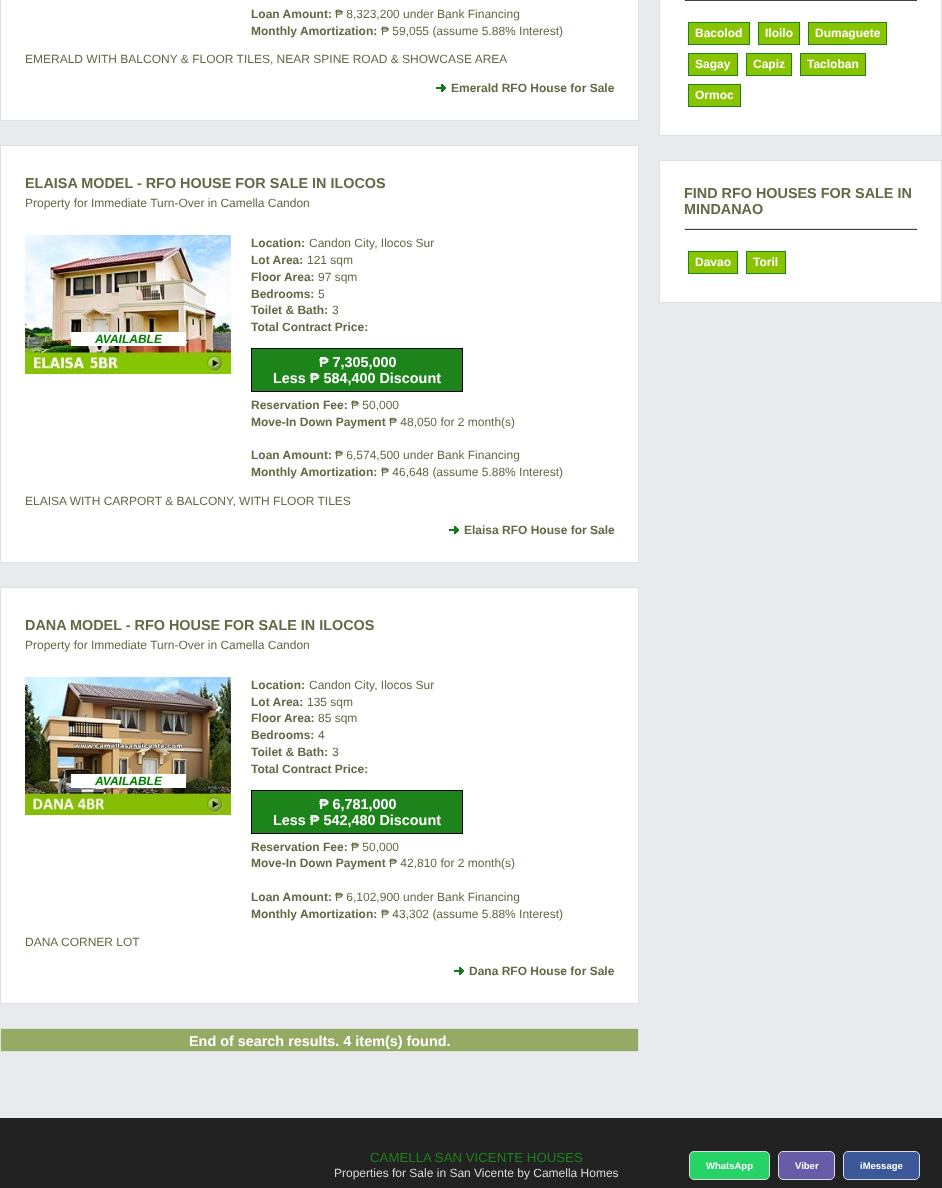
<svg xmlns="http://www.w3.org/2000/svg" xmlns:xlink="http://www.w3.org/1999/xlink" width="942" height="1188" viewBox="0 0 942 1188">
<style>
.cls-1{font:bold 12px Liberation Sans;fill:#646845}
.cls-2{font:12px Liberation Sans;fill:#646845}
.cls-3{font:bold 14.4px Liberation Sans;fill:#646845}
.cls-4{font:italic bold 12px Liberation Sans;fill:#008000}
.cls-5{font:bold 14.4px Liberation Sans;fill:#ffffff}
.cls-6{font:bold 12px Liberation Sans;fill:#ffffff}
.cls-7{font:13.25px Liberation Sans;fill:#1d831b}
.cls-8{font:12px Liberation Sans;fill:#d9d8d6}
.cls-9{font:bold 9.5px Liberation Sans;fill:#ffffff}
</style>
<rect width="100%" height="100%" fill="#e9eaed"/>
<rect fill="#ffffff" stroke="#dfe0e4" x="0.5" y="-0.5" width="638" height="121"/>
<image xlink:href="image0.png" x="436" y="84" width="10" height="8"/>
<rect fill="#ffffff" stroke="#dfe0e4" x="0.5" y="145.5" width="638" height="417"/>
<image xlink:href="image1.png" x="25" y="235" width="206" height="139"/>
<rect fill="#ffffff" x="71" y="332" width="115" height="14"/>
<rect fill="#1d831b" stroke="#000000" x="251.5" y="348.5" width="211" height="43"/>
<image xlink:href="image0.png" x="449" y="526" width="10" height="8"/>
<rect fill="#ffffff" stroke="#dfe0e4" x="0.5" y="587.5" width="638" height="416"/>
<image xlink:href="image2.png" x="25" y="677" width="206" height="138"/>
<rect fill="#ffffff" x="71" y="774" width="115" height="14"/>
<rect fill="#1d831b" stroke="#000000" x="251.5" y="790.5" width="211" height="43"/>
<image xlink:href="image0.png" x="454" y="967" width="10" height="8"/>
<rect fill="#95aa63" stroke="#dfe0e4" x="0.5" y="1028.5" width="638" height="23"/>
<rect fill="#ffffff" stroke="#dfe0e4" x="659.5" y="-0.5" width="282" height="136"/>
<rect fill="#404040" x="684" y="0" width="233" height="1"/>
<rect fill="#dfe0e4" x="684" y="0" width="1" height="1"/>
<rect fill="#89c403" stroke="#1d831b" x="688.5" y="22.5" width="61" height="22"/>
<rect fill="#89c403" stroke="#1d831b" x="758.5" y="22.5" width="41" height="22"/>
<rect fill="#89c403" stroke="#1d831b" x="808.5" y="22.5" width="78" height="22"/>
<rect fill="#89c403" stroke="#1d831b" x="688.5" y="53.5" width="49" height="22"/>
<rect fill="#89c403" stroke="#1d831b" x="746.5" y="53.5" width="45" height="22"/>
<rect fill="#89c403" stroke="#1d831b" x="800.5" y="53.5" width="65" height="22"/>
<rect fill="#89c403" stroke="#1d831b" x="688.5" y="84.5" width="52" height="22"/>
<rect fill="#ffffff" stroke="#dfe0e4" x="659.5" y="160.5" width="282" height="142"/>
<rect fill="#dfe0e4" x="684" y="228" width="233" height="1"/>
<rect fill="#dfe0e4" x="916" y="228" width="1" height="2"/>
<rect fill="#404040" x="684" y="229" width="233" height="1"/>
<rect fill="#dfe0e4" x="684" y="228" width="1" height="2"/>
<rect fill="#89c403" stroke="#1d831b" x="688.5" y="251.5" width="49" height="22"/>
<rect fill="#89c403" stroke="#1d831b" x="746.5" y="251.5" width="39" height="22"/>
<rect fill="#222222" x="0" y="1118" width="942" height="70"/>
<rect fill="#25d366" stroke="#dcdcdc" x="689.5" y="1151.5" width="80" height="28" rx="4.5"/>
<rect fill="#675ca8" stroke="#dcdcdc" x="778.5" y="1151.5" width="56" height="28" rx="4.5"/>
<rect fill="#3b5998" stroke="#dcdcdc" x="843.5" y="1151.5" width="76" height="28" rx="4.5"/>
<text class="cls-1" x="251" y="18">Loan Amount:</text>
<text class="cls-2" x="335" y="18">₱ 8,323,200 under Bank Financing</text>
<text class="cls-1" x="251" y="35">Monthly Amortization:</text>
<text class="cls-2" x="381" y="35">₱ 59,055 (assume 5.88% Interest)</text>
<text class="cls-2" x="25" y="63">EMERALD WITH BALCONY &amp; FLOOR TILES, NEAR SPINE ROAD &amp; SHOWCASE AREA</text>
<text class="cls-1" x="451" y="92">Emerald RFO House for Sale</text>
<text class="cls-3" x="25" y="188">ELAISA MODEL - RFO HOUSE FOR SALE IN ILOCOS</text>
<text class="cls-2" x="25" y="207">Property for Immediate Turn-Over in Camella Candon</text>
<text class="cls-4" x="95" y="343">AVAILABLE</text>
<text class="cls-1" x="251" y="247">Location:</text>
<text class="cls-2" x="309" y="247">Candon City, Ilocos Sur</text>
<text class="cls-1" x="251" y="264">Lot Area:</text>
<text class="cls-2" x="307" y="264">121 sqm</text>
<text class="cls-1" x="251" y="281">Floor Area:</text>
<text class="cls-2" x="318" y="281">97 sqm</text>
<text class="cls-1" x="251" y="298">Bedrooms:</text>
<text class="cls-2" x="318" y="298">5</text>
<text class="cls-1" x="251" y="314">Toilet &amp; Bath:</text>
<text class="cls-2" x="332" y="314">3</text>
<text class="cls-1" x="251" y="331">Total Contract Price:</text>
<text class="cls-5" x="319" y="367">₱ 7,305,000</text>
<text class="cls-5" x="273" y="383">Less ₱ 584,400 Discount</text>
<text class="cls-1" x="251" y="409">Reservation Fee:</text>
<text class="cls-2" x="351" y="409">₱ 50,000</text>
<text class="cls-1" x="251" y="426">Move-In Down Payment</text>
<text class="cls-2" x="389" y="426">₱ 48,050 for 2 month(s)</text>
<text class="cls-1" x="251" y="459">Loan Amount:</text>
<text class="cls-2" x="335" y="459">₱ 6,574,500 under Bank Financing</text>
<text class="cls-1" x="251" y="476">Monthly Amortization:</text>
<text class="cls-2" x="381" y="476">₱ 46,648 (assume 5.88% Interest)</text>
<text class="cls-2" x="25" y="505">ELAISA WITH CARPORT &amp; BALCONY, WITH FLOOR TILES</text>
<text class="cls-1" x="464" y="534">Elaisa RFO House for Sale</text>
<text class="cls-3" x="25" y="630">DANA MODEL - RFO HOUSE FOR SALE IN ILOCOS</text>
<text class="cls-2" x="25" y="649">Property for Immediate Turn-Over in Camella Candon</text>
<text class="cls-4" x="95" y="785">AVAILABLE</text>
<text class="cls-1" x="251" y="689">Location:</text>
<text class="cls-2" x="309" y="689">Candon City, Ilocos Sur</text>
<text class="cls-1" x="251" y="706">Lot Area:</text>
<text class="cls-2" x="307" y="706">135 sqm</text>
<text class="cls-1" x="251" y="722">Floor Area:</text>
<text class="cls-2" x="318" y="722">85 sqm</text>
<text class="cls-1" x="251" y="739">Bedrooms:</text>
<text class="cls-2" x="318" y="739">4</text>
<text class="cls-1" x="251" y="756">Toilet &amp; Bath:</text>
<text class="cls-2" x="332" y="756">3</text>
<text class="cls-1" x="251" y="773">Total Contract Price:</text>
<text class="cls-5" x="319" y="809">₱ 6,781,000</text>
<text class="cls-5" x="273" y="825">Less ₱ 542,480 Discount</text>
<text class="cls-1" x="251" y="851">Reservation Fee:</text>
<text class="cls-2" x="351" y="851">₱ 50,000</text>
<text class="cls-1" x="251" y="867">Move-In Down Payment</text>
<text class="cls-2" x="389" y="867">₱ 42,810 for 2 month(s)</text>
<text class="cls-1" x="251" y="901">Loan Amount:</text>
<text class="cls-2" x="335" y="901">₱ 6,102,900 under Bank Financing</text>
<text class="cls-1" x="251" y="918">Monthly Amortization:</text>
<text class="cls-2" x="381" y="918">₱ 43,302 (assume 5.88% Interest)</text>
<text class="cls-2" x="25" y="946">DANA CORNER LOT</text>
<text class="cls-1" x="469" y="975">Dana RFO House for Sale</text>
<text class="cls-5" x="189" y="1046">End of search results. 4 item(s) found.</text>
<text class="cls-6" x="695" y="37">Bacolod</text>
<text class="cls-6" x="765" y="37">Iloilo</text>
<text class="cls-6" x="815" y="37">Dumaguete</text>
<text class="cls-6" x="695" y="68">Sagay</text>
<text class="cls-6" x="753" y="68">Capiz</text>
<text class="cls-6" x="807" y="68">Tacloban</text>
<text class="cls-6" x="695" y="99">Ormoc</text>
<text class="cls-3"><tspan x="684" y="198">FIND RFO HOUSES FOR SALE IN</tspan><tspan x="684" y="214">MINDANAO</tspan></text>
<text class="cls-6" x="695" y="266">Davao</text>
<text class="cls-6" x="753" y="266">Toril</text>
<text class="cls-7" x="370" y="1162">CAMELLA SAN VICENTE HOUSES</text>
<text class="cls-8" x="334" y="1177">Properties for Sale in San Vicente by Camella Homes</text>
<text class="cls-9" x="706" y="1169">WhatsApp</text>
<text class="cls-9" x="795" y="1169">Viber</text>
<text class="cls-9" x="860" y="1169">iMessage</text>
</svg>
